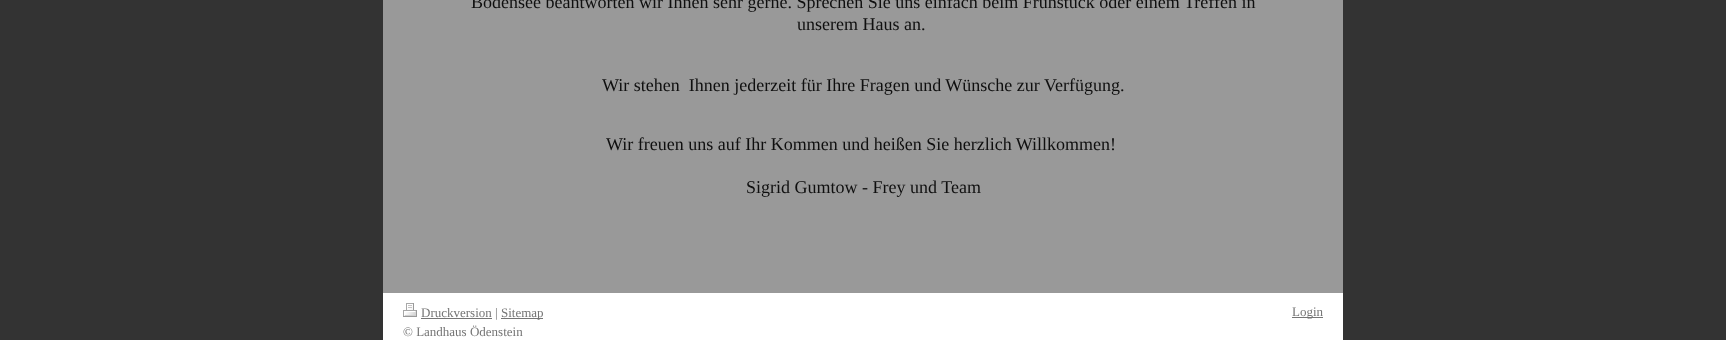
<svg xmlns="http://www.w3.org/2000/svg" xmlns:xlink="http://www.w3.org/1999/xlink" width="1726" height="340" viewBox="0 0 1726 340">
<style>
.cls-1{font:18px Liberation Serif;fill:#0f0f0f}
.cls-2{font:13px Liberation Serif;fill:#757575}
</style>
<rect width="100%" height="100%" fill="#333333"/>
<rect fill="#999999" x="383" y="0" width="960" height="293"/>
<rect fill="#ffffff" x="383" y="293" width="960" height="47"/>
<image xlink:href="image0.png" x="403" y="303" width="14" height="14"/>
<rect fill="#757575" x="421" y="318" width="71" height="1"/>
<rect fill="#757575" x="501" y="318" width="42" height="1"/>
<rect fill="#757575" x="1292" y="317" width="31" height="1"/>
<text class="cls-1" x="471" y="8">Bodensee beantworten wir Ihnen sehr gerne. Sprechen Sie uns einfach beim Frühstück oder einem Treffen in</text>
<text class="cls-1" x="797" y="30">unserem Haus an.</text>
<text class="cls-1" xml:space="preserve" x="602" y="91">Wir stehen  Ihnen jederzeit für Ihre Fragen und Wünsche zur Verfügung.</text>
<text class="cls-1" x="606" y="150">Wir freuen uns auf Ihr Kommen und heißen Sie herzlich Willkommen!</text>
<text class="cls-1" x="746" y="193">Sigrid Gumtow - Frey und Team</text>
<text class="cls-2" x="421" y="317">Druckversion |</text>
<text class="cls-2" x="501" y="317">Sitemap</text>
<text class="cls-2" x="403" y="336">© Landhaus Ödenstein</text>
<text class="cls-2" x="1292" y="316">Login</text>
</svg>
